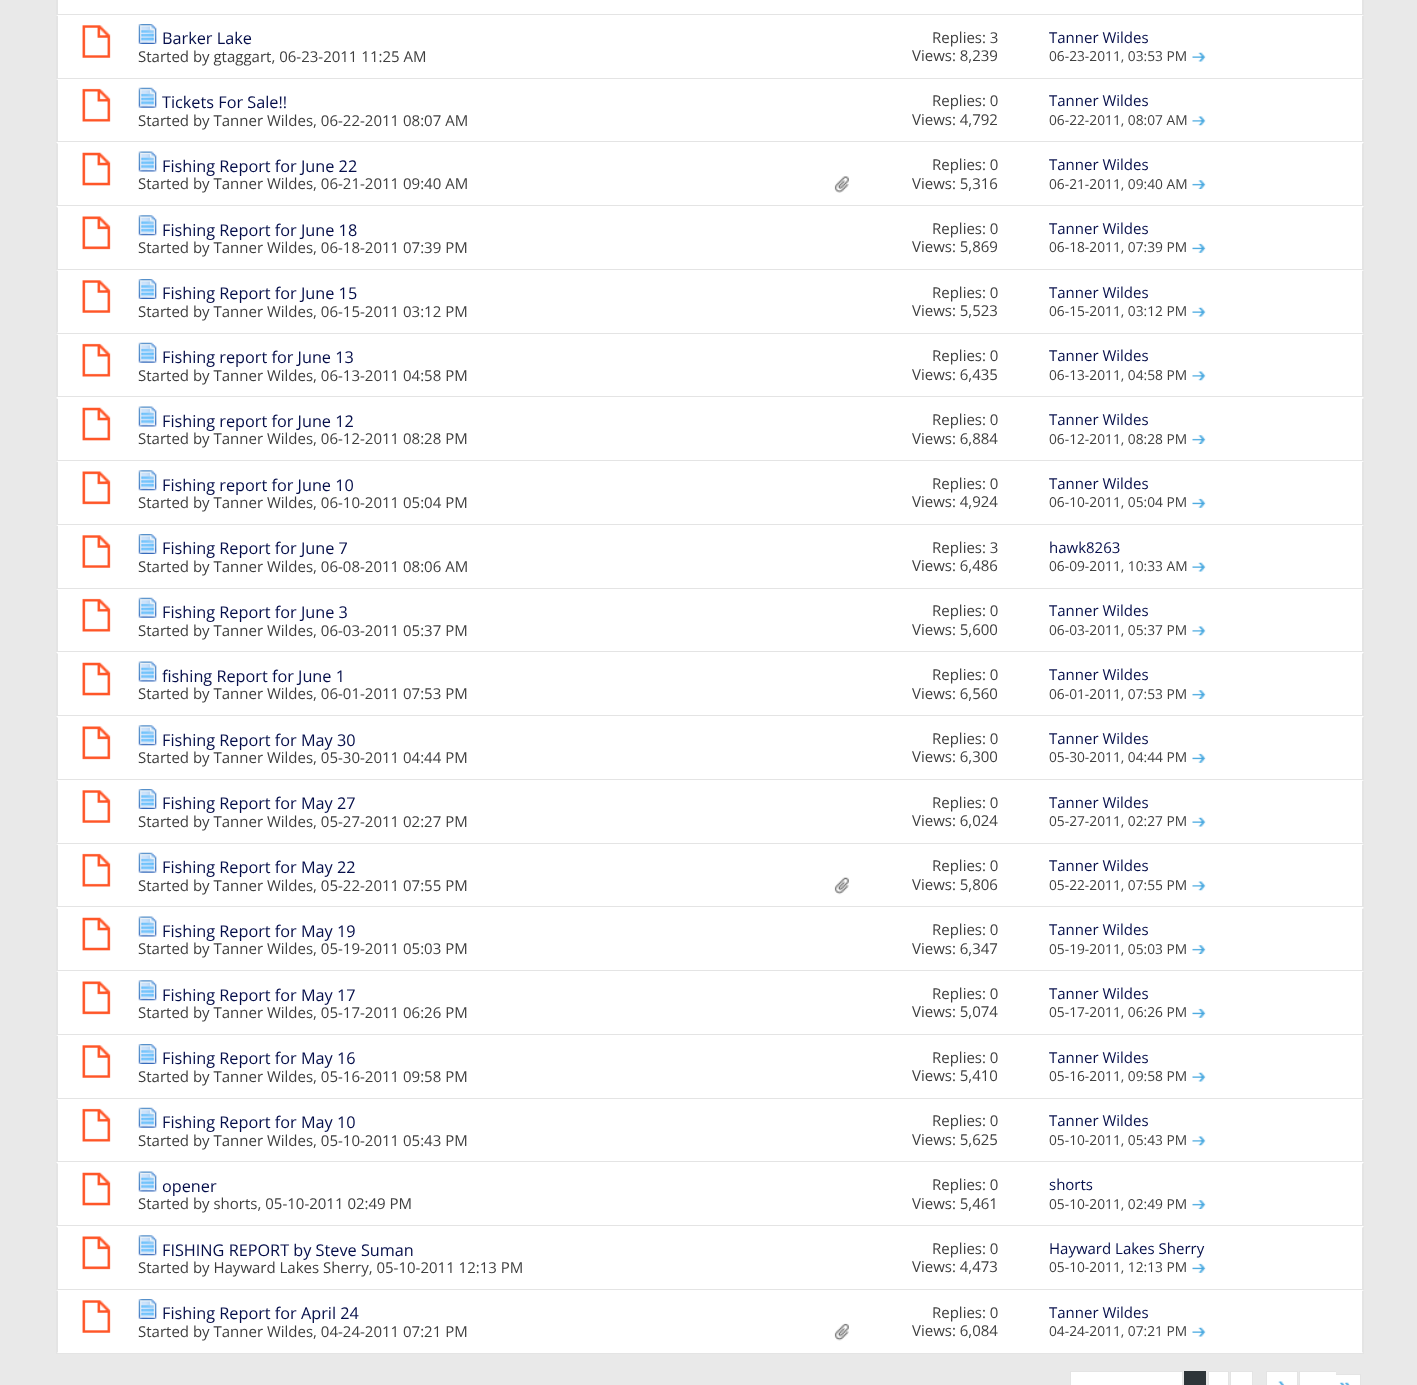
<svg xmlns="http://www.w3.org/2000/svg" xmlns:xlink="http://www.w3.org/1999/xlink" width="1417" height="1385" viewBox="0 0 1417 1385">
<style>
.cls-1{font:16.25px Open Sans;fill:#050e4a}
.cls-2{font:15px Open Sans;fill:#3e3e3e}
.cls-3{font:15px Open Sans;fill:#050e4a}
.cls-4{font:13.75px Open Sans;fill:#3e3e3e}
</style>
<rect width="100%" height="100%" fill="#e9e9e9"/>
<rect fill="#ffffff" x="58" y="0" width="1304" height="14"/>
<path fill="#e4e4e4" d="M1364-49V15L1362 14V-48Z"/>
<rect fill="#e4e4e4" x="56" y="14" width="1308" height="1"/>
<path fill="#e4e4e4" d="M56 15V-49L58-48V14Z"/>
<rect fill="#ffffff" x="56" y="15" width="1308" height="63"/>
<path fill="#e4e4e4" d="M1364 15V79L1362 78V16Z"/>
<rect fill="#e4e4e4" x="56" y="78" width="1308" height="1"/>
<path fill="#e4e4e4" d="M56 79V15L58 16V78Z"/>
<image xlink:href="image0.png" x="82" y="25" width="29" height="33"/>
<image xlink:href="image1.png" x="138" y="24" width="19" height="20"/>
<image xlink:href="image2.png" x="1192" y="52" width="14" height="10"/>
<rect fill="#ffffff" x="56" y="79" width="1308" height="64"/>
<path fill="#e4e4e4" d="M1364 79V142L1362 141V80Z"/>
<rect fill="#e4e4e4" x="56" y="141" width="1308" height="1"/>
<path fill="#e4e4e4" d="M56 142V79L58 80V141Z"/>
<image xlink:href="image3.png" x="82" y="88" width="29" height="34"/>
<image xlink:href="image4.png" x="138" y="87" width="19" height="21"/>
<image xlink:href="image5.png" x="1192" y="116" width="14" height="10"/>
<rect fill="#ffffff" x="57" y="143" width="1306" height="62"/>
<path fill="#e4e4e4" d="M1364 142V206L1362 205V144Z"/>
<rect fill="#e4e4e4" x="56" y="205" width="1308" height="1"/>
<path fill="#e4e4e4" d="M56 206V142L58 144V205Z"/>
<image xlink:href="image6.png" x="82" y="152" width="29" height="34"/>
<image xlink:href="image7.png" x="138" y="151" width="19" height="21"/>
<image xlink:href="image8.png" x="834" y="176" width="15" height="17"/>
<image xlink:href="image9.png" x="1192" y="180" width="14" height="9"/>
<rect fill="#ffffff" x="56" y="206" width="1308" height="63"/>
<path fill="#e4e4e4" d="M1364 206V270L1362 269V208Z"/>
<rect fill="#e4e4e4" x="56" y="269" width="1308" height="1"/>
<path fill="#e4e4e4" d="M56 270V206L58 208V269Z"/>
<image xlink:href="image10.png" x="82" y="216" width="29" height="34"/>
<image xlink:href="image11.png" x="138" y="215" width="19" height="21"/>
<image xlink:href="image12.png" x="1192" y="243" width="14" height="10"/>
<rect fill="#ffffff" x="56" y="270" width="1308" height="63"/>
<path fill="#e4e4e4" d="M1364 270V334L1362 332V271Z"/>
<rect fill="#e4e4e4" x="56" y="333" width="1308" height="1"/>
<path fill="#e4e4e4" d="M56 334V270L58 271V332Z"/>
<image xlink:href="image0.png" x="82" y="280" width="29" height="33"/>
<image xlink:href="image1.png" x="138" y="279" width="19" height="20"/>
<image xlink:href="image2.png" x="1192" y="307" width="14" height="10"/>
<rect fill="#ffffff" x="56" y="334" width="1308" height="126"/>
<path fill="#e4e4e4" d="M1364 334V398L1362 396V335Z"/>
<rect fill="#e4e4e4" x="56" y="396" width="1308" height="1"/>
<path fill="#e4e4e4" d="M56 398V334L58 335V396Z"/>
<image xlink:href="image3.png" x="82" y="343" width="29" height="34"/>
<image xlink:href="image4.png" x="138" y="342" width="19" height="21"/>
<image xlink:href="image5.png" x="1192" y="371" width="14" height="10"/>
<path fill="#e4e4e4" d="M1364 398V461L1362 460V399Z"/>
<rect fill="#e4e4e4" x="56" y="460" width="1308" height="1"/>
<path fill="#e4e4e4" d="M56 461V398L58 399V460Z"/>
<image xlink:href="image6.png" x="82" y="407" width="29" height="34"/>
<image xlink:href="image7.png" x="138" y="406" width="19" height="21"/>
<image xlink:href="image13.png" x="1192" y="435" width="14" height="9"/>
<rect fill="#ffffff" x="56" y="461" width="1308" height="63"/>
<path fill="#e4e4e4" d="M1364 461V525L1362 524V462Z"/>
<rect fill="#e4e4e4" x="56" y="524" width="1308" height="1"/>
<path fill="#e4e4e4" d="M56 525V461L58 462V524Z"/>
<image xlink:href="image10.png" x="82" y="471" width="29" height="34"/>
<image xlink:href="image11.png" x="138" y="470" width="19" height="21"/>
<image xlink:href="image12.png" x="1192" y="498" width="14" height="10"/>
<rect fill="#ffffff" x="56" y="525" width="1308" height="63"/>
<path fill="#e4e4e4" d="M1364 525V589L1362 588V526Z"/>
<rect fill="#e4e4e4" x="56" y="588" width="1308" height="1"/>
<path fill="#e4e4e4" d="M56 589V525L58 526V588Z"/>
<image xlink:href="image0.png" x="82" y="535" width="29" height="33"/>
<image xlink:href="image1.png" x="138" y="534" width="19" height="20"/>
<image xlink:href="image2.png" x="1192" y="562" width="14" height="10"/>
<rect fill="#ffffff" x="56" y="589" width="1308" height="64"/>
<path fill="#e4e4e4" d="M1364 589V652L1362 651V590Z"/>
<rect fill="#e4e4e4" x="56" y="651" width="1308" height="1"/>
<path fill="#e4e4e4" d="M56 652V589L58 590V651Z"/>
<image xlink:href="image3.png" x="82" y="598" width="29" height="34"/>
<image xlink:href="image4.png" x="138" y="597" width="19" height="21"/>
<image xlink:href="image5.png" x="1192" y="626" width="14" height="10"/>
<rect fill="#ffffff" x="57" y="653" width="1306" height="62"/>
<path fill="#e4e4e4" d="M1364 652V716L1362 715V654Z"/>
<rect fill="#e4e4e4" x="56" y="715" width="1308" height="1"/>
<path fill="#e4e4e4" d="M56 716V652L58 654V715Z"/>
<image xlink:href="image6.png" x="82" y="662" width="29" height="34"/>
<image xlink:href="image7.png" x="138" y="661" width="19" height="21"/>
<image xlink:href="image14.png" x="1192" y="690" width="14" height="9"/>
<rect fill="#ffffff" x="56" y="716" width="1308" height="63"/>
<path fill="#e4e4e4" d="M1364 716V780L1362 779V718Z"/>
<rect fill="#e4e4e4" x="56" y="779" width="1308" height="1"/>
<path fill="#e4e4e4" d="M56 780V716L58 718V779Z"/>
<image xlink:href="image10.png" x="82" y="726" width="29" height="34"/>
<image xlink:href="image11.png" x="138" y="725" width="19" height="21"/>
<image xlink:href="image12.png" x="1192" y="753" width="14" height="10"/>
<rect fill="#ffffff" x="56" y="780" width="1308" height="63"/>
<path fill="#e4e4e4" d="M1364 780V844L1362 842V781Z"/>
<rect fill="#e4e4e4" x="56" y="843" width="1308" height="1"/>
<path fill="#e4e4e4" d="M56 844V780L58 781V842Z"/>
<image xlink:href="image0.png" x="82" y="790" width="29" height="33"/>
<image xlink:href="image1.png" x="138" y="789" width="19" height="20"/>
<image xlink:href="image2.png" x="1192" y="817" width="14" height="10"/>
<rect fill="#ffffff" x="56" y="844" width="1308" height="126"/>
<path fill="#e4e4e4" d="M1364 844V908L1362 906V845Z"/>
<rect fill="#e4e4e4" x="56" y="906" width="1308" height="1"/>
<path fill="#e4e4e4" d="M56 908V844L58 845V906Z"/>
<image xlink:href="image3.png" x="82" y="853" width="29" height="34"/>
<image xlink:href="image4.png" x="138" y="852" width="19" height="21"/>
<image xlink:href="image15.png" x="834" y="877" width="15" height="18"/>
<image xlink:href="image5.png" x="1192" y="881" width="14" height="10"/>
<path fill="#e4e4e4" d="M1364 908V971L1362 970V909Z"/>
<rect fill="#e4e4e4" x="56" y="970" width="1308" height="1"/>
<path fill="#e4e4e4" d="M56 971V908L58 909V970Z"/>
<image xlink:href="image6.png" x="82" y="917" width="29" height="34"/>
<image xlink:href="image7.png" x="138" y="916" width="19" height="21"/>
<image xlink:href="image13.png" x="1192" y="945" width="14" height="9"/>
<rect fill="#ffffff" x="56" y="971" width="1308" height="63"/>
<path fill="#e4e4e4" d="M1364 971V1035L1362 1034V972Z"/>
<rect fill="#e4e4e4" x="56" y="1034" width="1308" height="1"/>
<path fill="#e4e4e4" d="M56 1035V971L58 972V1034Z"/>
<image xlink:href="image10.png" x="82" y="981" width="29" height="34"/>
<image xlink:href="image11.png" x="138" y="980" width="19" height="21"/>
<image xlink:href="image12.png" x="1192" y="1008" width="14" height="10"/>
<rect fill="#ffffff" x="56" y="1035" width="1308" height="63"/>
<path fill="#e4e4e4" d="M1364 1035V1099L1362 1098V1036Z"/>
<rect fill="#e4e4e4" x="56" y="1098" width="1308" height="1"/>
<path fill="#e4e4e4" d="M56 1099V1035L58 1036V1098Z"/>
<image xlink:href="image0.png" x="82" y="1045" width="29" height="33"/>
<image xlink:href="image1.png" x="138" y="1044" width="19" height="20"/>
<image xlink:href="image2.png" x="1192" y="1072" width="14" height="10"/>
<rect fill="#ffffff" x="56" y="1099" width="1308" height="64"/>
<path fill="#e4e4e4" d="M1364 1099V1162L1362 1161V1100Z"/>
<rect fill="#e4e4e4" x="56" y="1161" width="1308" height="1"/>
<path fill="#e4e4e4" d="M56 1162V1099L58 1100V1161Z"/>
<image xlink:href="image3.png" x="82" y="1108" width="29" height="34"/>
<image xlink:href="image4.png" x="138" y="1107" width="19" height="21"/>
<image xlink:href="image5.png" x="1192" y="1136" width="14" height="10"/>
<rect fill="#ffffff" x="57" y="1163" width="1306" height="62"/>
<path fill="#e4e4e4" d="M1364 1162V1226L1362 1225V1164Z"/>
<rect fill="#e4e4e4" x="56" y="1225" width="1308" height="1"/>
<path fill="#e4e4e4" d="M56 1226V1162L58 1164V1225Z"/>
<image xlink:href="image6.png" x="82" y="1172" width="29" height="34"/>
<image xlink:href="image7.png" x="138" y="1171" width="19" height="21"/>
<image xlink:href="image13.png" x="1192" y="1200" width="14" height="9"/>
<rect fill="#ffffff" x="56" y="1226" width="1308" height="63"/>
<path fill="#e4e4e4" d="M1364 1226V1290L1362 1289V1228Z"/>
<rect fill="#e4e4e4" x="56" y="1289" width="1308" height="1"/>
<path fill="#e4e4e4" d="M56 1290V1226L58 1228V1289Z"/>
<image xlink:href="image10.png" x="82" y="1236" width="29" height="34"/>
<image xlink:href="image11.png" x="138" y="1235" width="19" height="21"/>
<image xlink:href="image12.png" x="1192" y="1263" width="14" height="10"/>
<rect fill="#ffffff" x="56" y="1290" width="1308" height="63"/>
<path fill="#e4e4e4" d="M1364 1290V1354L1362 1352V1291Z"/>
<rect fill="#e4e4e4" x="56" y="1353" width="1308" height="1"/>
<path fill="#e4e4e4" d="M56 1354V1290L58 1291V1352Z"/>
<image xlink:href="image0.png" x="82" y="1300" width="29" height="33"/>
<image xlink:href="image1.png" x="138" y="1299" width="19" height="20"/>
<image xlink:href="image16.png" x="834" y="1323" width="15" height="18"/>
<image xlink:href="image2.png" x="1192" y="1327" width="14" height="10"/>
<rect fill="#ffffff" stroke="#e4e4e4" x="1070.5" y="1371.5" width="112" height="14"/>
<rect fill="#2e3539" x="1184" y="1371" width="22" height="14"/>
<rect fill="#ffffff" stroke="#e4e4e4" x="1208.5" y="1371.5" width="20" height="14"/>
<rect fill="#ffffff" stroke="#e4e4e4" x="1230.5" y="1371.5" width="22" height="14"/>
<rect fill="#ffffff" stroke="#e4e4e4" x="1266.5" y="1371.5" width="31" height="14"/>
<image xlink:href="image17.png" x="1278" y="1381" width="7" height="4"/>
<rect fill="#e4e4e4" x="1299" y="1371" width="37" height="1"/>
<rect fill="#e4e4e4" x="1299" y="1371" width="1" height="14"/>
<rect fill="#ffffff" x="1300" y="1372" width="36" height="13"/>
<rect fill="#e4e4e4" x="1336" y="1374" width="25" height="1"/>
<rect fill="#ffffff" x="1336" y="1375" width="24" height="10"/>
<rect fill="#e4e4e4" x="1360" y="1374" width="1" height="11"/>
<image xlink:href="image18.png" x="1339" y="1382" width="11" height="3"/>
<text class="cls-1" x="162" y="44">Barker Lake</text>
<text class="cls-2" x="138" y="62">Started by gtaggart, 06-23-2011 11:25 AM</text>
<text class="cls-2" x="932" y="43">Replies: 3</text>
<text class="cls-2" x="912" y="61">Views: 8,239</text>
<text class="cls-3" x="1049" y="43">Tanner Wildes</text>
<text class="cls-4" x="1049" y="61">06-23-2011, 03:53 PM</text>
<text class="cls-1" x="162" y="108">Tickets For Sale!!</text>
<text class="cls-2" x="138" y="126">Started by Tanner Wildes, 06-22-2011 08:07 AM</text>
<text class="cls-2" x="932" y="106">Replies: 0</text>
<text class="cls-2" x="912" y="125">Views: 4,792</text>
<text class="cls-3" x="1049" y="106">Tanner Wildes</text>
<text class="cls-4" x="1049" y="125">06-22-2011, 08:07 AM</text>
<text class="cls-1" x="162" y="172">Fishing Report for June 22</text>
<text class="cls-2" x="138" y="189">Started by Tanner Wildes, 06-21-2011 09:40 AM</text>
<text class="cls-2" x="932" y="170">Replies: 0</text>
<text class="cls-2" x="912" y="189">Views: 5,316</text>
<text class="cls-3" x="1049" y="170">Tanner Wildes</text>
<text class="cls-4" x="1049" y="189">06-21-2011, 09:40 AM</text>
<text class="cls-1" x="162" y="236">Fishing Report for June 18</text>
<text class="cls-2" x="138" y="253">Started by Tanner Wildes, 06-18-2011 07:39 PM</text>
<text class="cls-2" x="932" y="234">Replies: 0</text>
<text class="cls-2" x="912" y="252">Views: 5,869</text>
<text class="cls-3" x="1049" y="234">Tanner Wildes</text>
<text class="cls-4" x="1049" y="252">06-18-2011, 07:39 PM</text>
<text class="cls-1" x="162" y="299">Fishing Report for June 15</text>
<text class="cls-2" x="138" y="317">Started by Tanner Wildes, 06-15-2011 03:12 PM</text>
<text class="cls-2" x="932" y="298">Replies: 0</text>
<text class="cls-2" x="912" y="316">Views: 5,523</text>
<text class="cls-3" x="1049" y="298">Tanner Wildes</text>
<text class="cls-4" x="1049" y="316">06-15-2011, 03:12 PM</text>
<text class="cls-1" x="162" y="363">Fishing report for June 13</text>
<text class="cls-2" x="138" y="381">Started by Tanner Wildes, 06-13-2011 04:58 PM</text>
<text class="cls-2" x="932" y="361">Replies: 0</text>
<text class="cls-2" x="912" y="380">Views: 6,435</text>
<text class="cls-3" x="1049" y="361">Tanner Wildes</text>
<text class="cls-4" x="1049" y="380">06-13-2011, 04:58 PM</text>
<text class="cls-1" x="162" y="427">Fishing report for June 12</text>
<text class="cls-2" x="138" y="444">Started by Tanner Wildes, 06-12-2011 08:28 PM</text>
<text class="cls-2" x="932" y="425">Replies: 0</text>
<text class="cls-2" x="912" y="444">Views: 6,884</text>
<text class="cls-3" x="1049" y="425">Tanner Wildes</text>
<text class="cls-4" x="1049" y="444">06-12-2011, 08:28 PM</text>
<text class="cls-1" x="162" y="491">Fishing report for June 10</text>
<text class="cls-2" x="138" y="508">Started by Tanner Wildes, 06-10-2011 05:04 PM</text>
<text class="cls-2" x="932" y="489">Replies: 0</text>
<text class="cls-2" x="912" y="507">Views: 4,924</text>
<text class="cls-3" x="1049" y="489">Tanner Wildes</text>
<text class="cls-4" x="1049" y="507">06-10-2011, 05:04 PM</text>
<text class="cls-1" x="162" y="554">Fishing Report for June 7</text>
<text class="cls-2" x="138" y="572">Started by Tanner Wildes, 06-08-2011 08:06 AM</text>
<text class="cls-2" x="932" y="553">Replies: 3</text>
<text class="cls-2" x="912" y="571">Views: 6,486</text>
<text class="cls-3" x="1049" y="553">hawk8263</text>
<text class="cls-4" x="1049" y="571">06-09-2011, 10:33 AM</text>
<text class="cls-1" x="162" y="618">Fishing Report for June 3</text>
<text class="cls-2" x="138" y="636">Started by Tanner Wildes, 06-03-2011 05:37 PM</text>
<text class="cls-2" x="932" y="616">Replies: 0</text>
<text class="cls-2" x="912" y="635">Views: 5,600</text>
<text class="cls-3" x="1049" y="616">Tanner Wildes</text>
<text class="cls-4" x="1049" y="635">06-03-2011, 05:37 PM</text>
<text class="cls-1" x="162" y="682">fishing Report for June 1</text>
<text class="cls-2" x="138" y="699">Started by Tanner Wildes, 06-01-2011 07:53 PM</text>
<text class="cls-2" x="932" y="680">Replies: 0</text>
<text class="cls-2" x="912" y="699">Views: 6,560</text>
<text class="cls-3" x="1049" y="680">Tanner Wildes</text>
<text class="cls-4" x="1049" y="699">06-01-2011, 07:53 PM</text>
<text class="cls-1" x="162" y="746">Fishing Report for May 30</text>
<text class="cls-2" x="138" y="763">Started by Tanner Wildes, 05-30-2011 04:44 PM</text>
<text class="cls-2" x="932" y="744">Replies: 0</text>
<text class="cls-2" x="912" y="762">Views: 6,300</text>
<text class="cls-3" x="1049" y="744">Tanner Wildes</text>
<text class="cls-4" x="1049" y="762">05-30-2011, 04:44 PM</text>
<text class="cls-1" x="162" y="809">Fishing Report for May 27</text>
<text class="cls-2" x="138" y="827">Started by Tanner Wildes, 05-27-2011 02:27 PM</text>
<text class="cls-2" x="932" y="808">Replies: 0</text>
<text class="cls-2" x="912" y="826">Views: 6,024</text>
<text class="cls-3" x="1049" y="808">Tanner Wildes</text>
<text class="cls-4" x="1049" y="826">05-27-2011, 02:27 PM</text>
<text class="cls-1" x="162" y="873">Fishing Report for May 22</text>
<text class="cls-2" x="138" y="891">Started by Tanner Wildes, 05-22-2011 07:55 PM</text>
<text class="cls-2" x="932" y="871">Replies: 0</text>
<text class="cls-2" x="912" y="890">Views: 5,806</text>
<text class="cls-3" x="1049" y="871">Tanner Wildes</text>
<text class="cls-4" x="1049" y="890">05-22-2011, 07:55 PM</text>
<text class="cls-1" x="162" y="937">Fishing Report for May 19</text>
<text class="cls-2" x="138" y="954">Started by Tanner Wildes, 05-19-2011 05:03 PM</text>
<text class="cls-2" x="932" y="935">Replies: 0</text>
<text class="cls-2" x="912" y="954">Views: 6,347</text>
<text class="cls-3" x="1049" y="935">Tanner Wildes</text>
<text class="cls-4" x="1049" y="954">05-19-2011, 05:03 PM</text>
<text class="cls-1" x="162" y="1001">Fishing Report for May 17</text>
<text class="cls-2" x="138" y="1018">Started by Tanner Wildes, 05-17-2011 06:26 PM</text>
<text class="cls-2" x="932" y="999">Replies: 0</text>
<text class="cls-2" x="912" y="1017">Views: 5,074</text>
<text class="cls-3" x="1049" y="999">Tanner Wildes</text>
<text class="cls-4" x="1049" y="1017">05-17-2011, 06:26 PM</text>
<text class="cls-1" x="162" y="1064">Fishing Report for May 16</text>
<text class="cls-2" x="138" y="1082">Started by Tanner Wildes, 05-16-2011 09:58 PM</text>
<text class="cls-2" x="932" y="1063">Replies: 0</text>
<text class="cls-2" x="912" y="1081">Views: 5,410</text>
<text class="cls-3" x="1049" y="1063">Tanner Wildes</text>
<text class="cls-4" x="1049" y="1081">05-16-2011, 09:58 PM</text>
<text class="cls-1" x="162" y="1128">Fishing Report for May 10</text>
<text class="cls-2" x="138" y="1146">Started by Tanner Wildes, 05-10-2011 05:43 PM</text>
<text class="cls-2" x="932" y="1126">Replies: 0</text>
<text class="cls-2" x="912" y="1145">Views: 5,625</text>
<text class="cls-3" x="1049" y="1126">Tanner Wildes</text>
<text class="cls-4" x="1049" y="1145">05-10-2011, 05:43 PM</text>
<text class="cls-1" x="162" y="1192">opener</text>
<text class="cls-2" x="138" y="1209">Started by shorts, 05-10-2011 02:49 PM</text>
<text class="cls-2" x="932" y="1190">Replies: 0</text>
<text class="cls-2" x="912" y="1209">Views: 5,461</text>
<text class="cls-3" x="1049" y="1190">shorts</text>
<text class="cls-4" x="1049" y="1209">05-10-2011, 02:49 PM</text>
<text class="cls-1" x="162" y="1256">FISHING REPORT by Steve Suman</text>
<text class="cls-2" x="138" y="1273">Started by Hayward Lakes Sherry, 05-10-2011 12:13 PM</text>
<text class="cls-2" x="932" y="1254">Replies: 0</text>
<text class="cls-2" x="912" y="1272">Views: 4,473</text>
<text class="cls-3" x="1049" y="1254">Hayward Lakes Sherry</text>
<text class="cls-4" x="1049" y="1272">05-10-2011, 12:13 PM</text>
<text class="cls-1" x="162" y="1319">Fishing Report for April 24</text>
<text class="cls-2" x="138" y="1337">Started by Tanner Wildes, 04-24-2011 07:21 PM</text>
<text class="cls-2" x="932" y="1318">Replies: 0</text>
<text class="cls-2" x="912" y="1336">Views: 6,084</text>
<text class="cls-3" x="1049" y="1318">Tanner Wildes</text>
<text class="cls-4" x="1049" y="1336">04-24-2011, 07:21 PM</text>
</svg>
